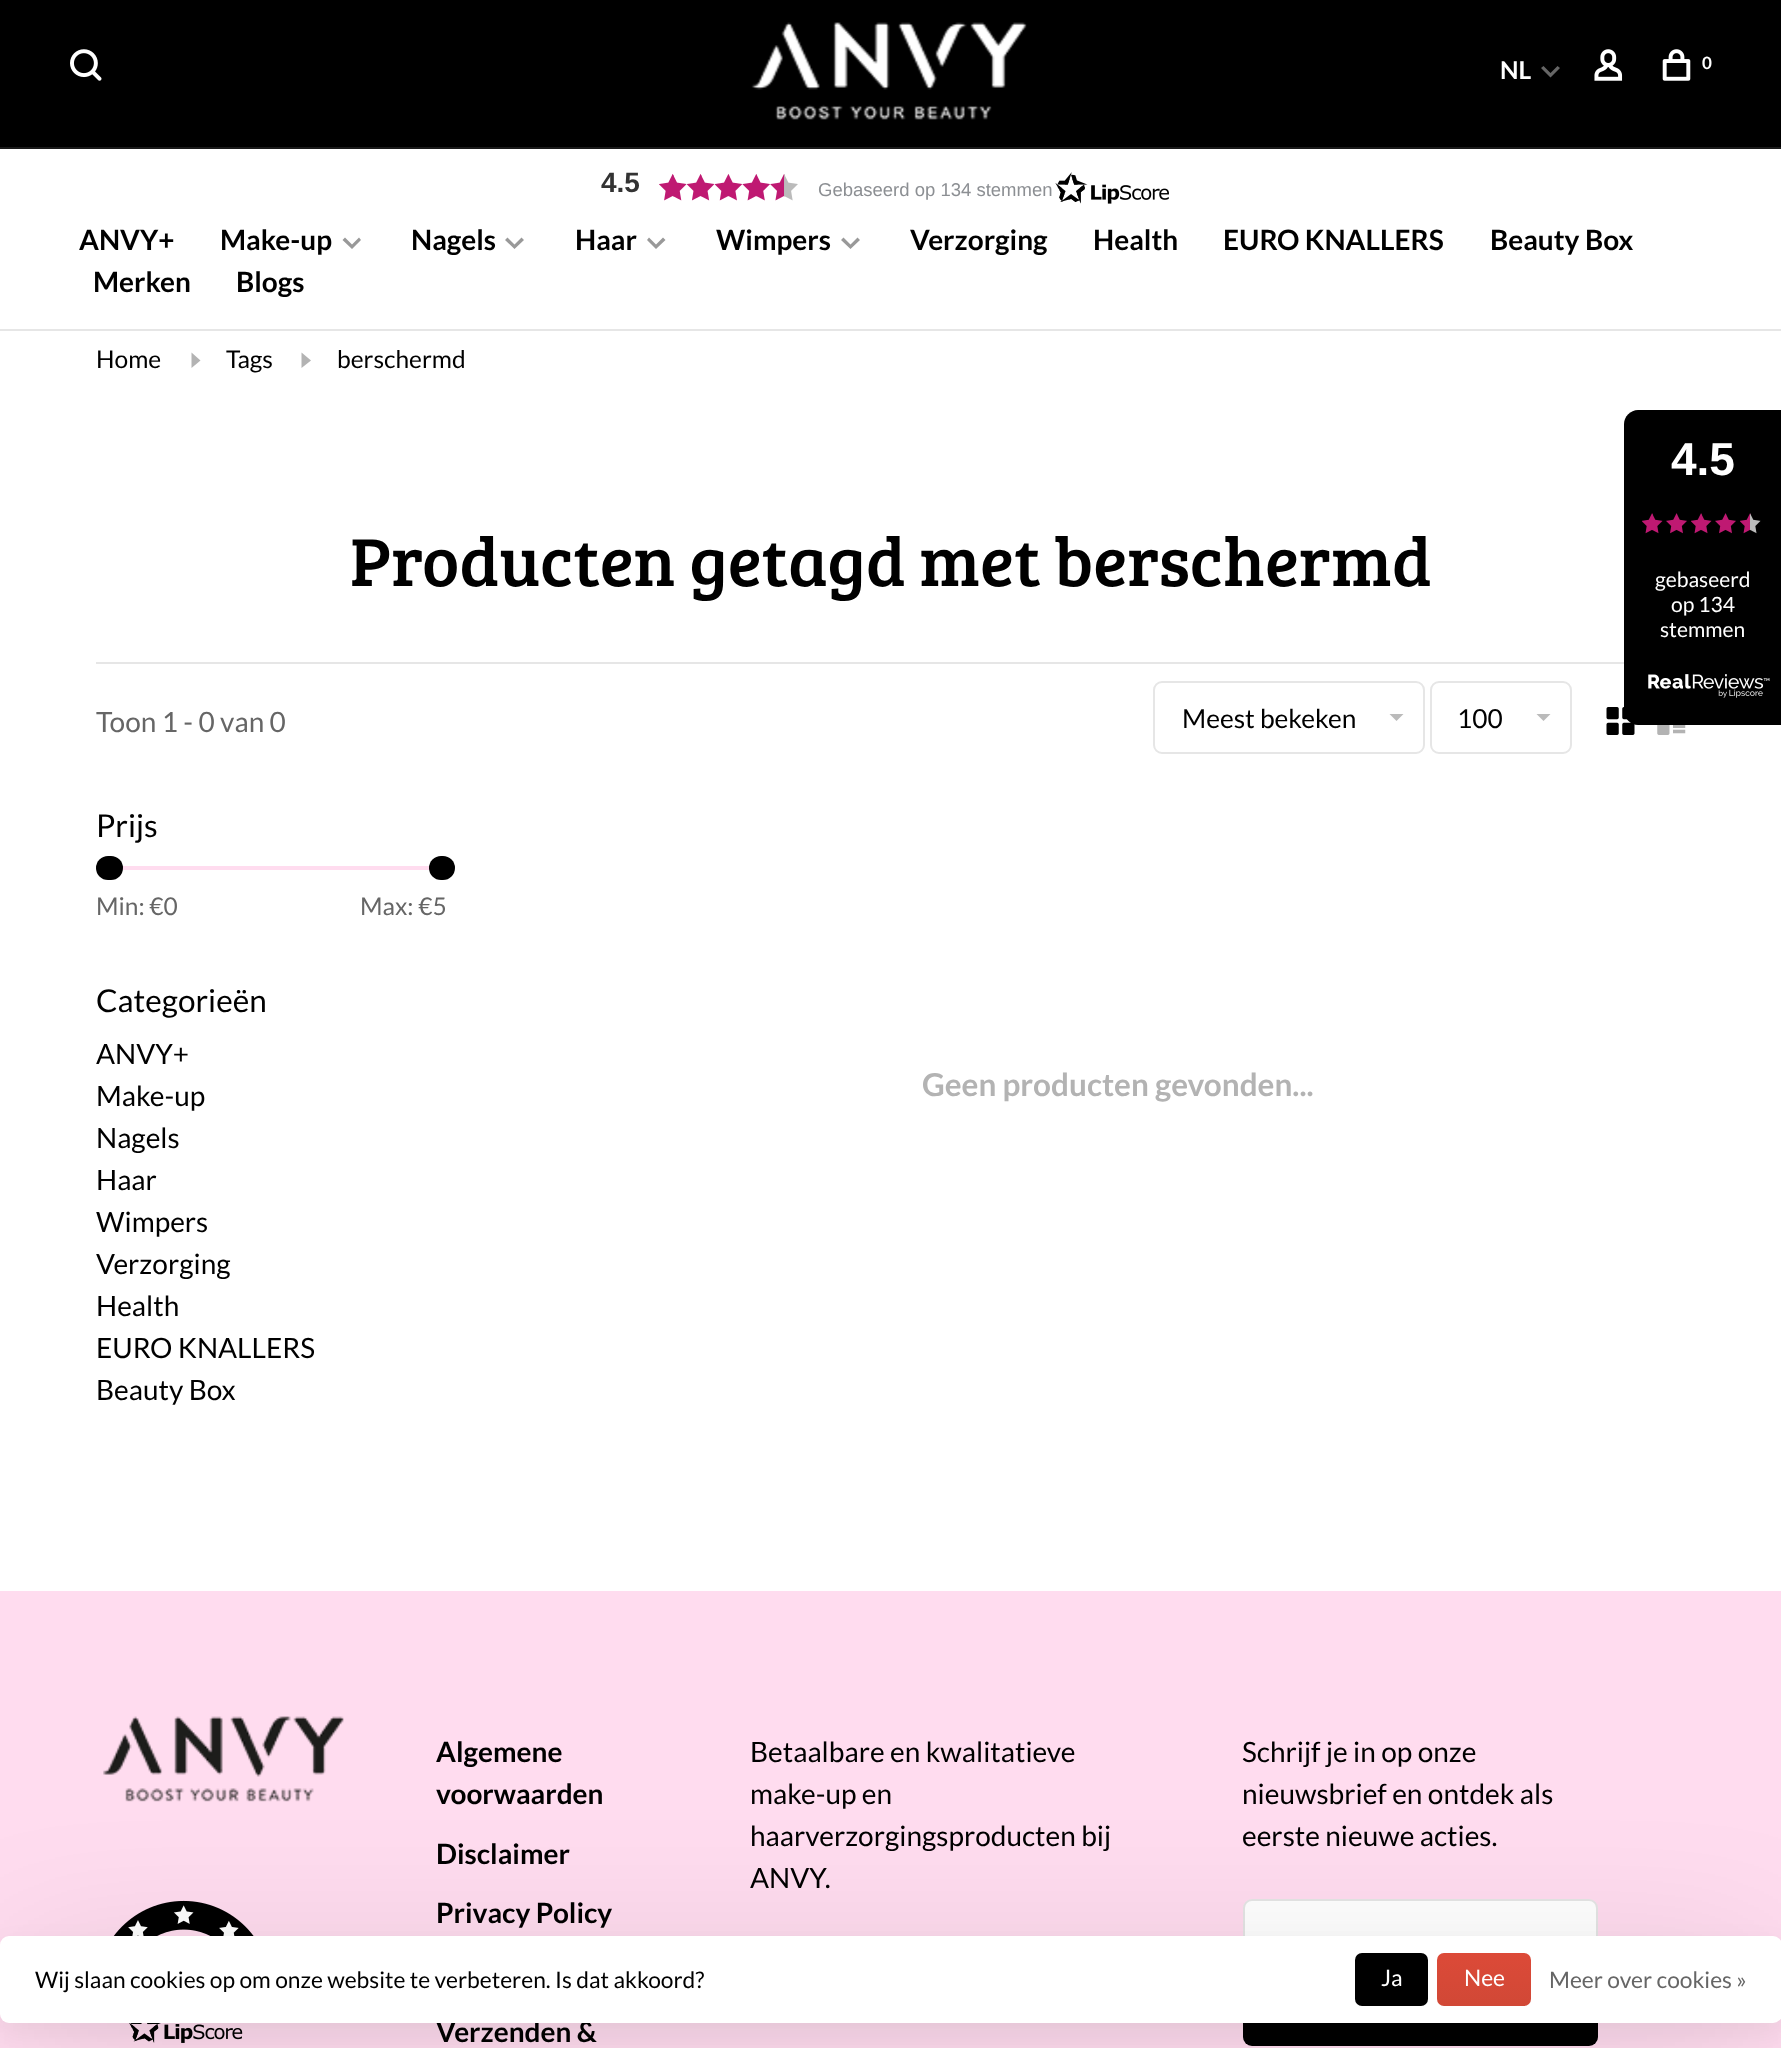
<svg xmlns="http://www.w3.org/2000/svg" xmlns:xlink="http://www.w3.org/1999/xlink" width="1781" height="2048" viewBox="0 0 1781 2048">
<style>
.cls-1{font:bold 24.5px Lato;fill:#ffffff}
.cls-2{font:bold 17px Lato;fill:#ffffff}
.cls-3{font:bold 28px Liberation Sans;fill:#333333}
.cls-4{font:18.5px Liberation Sans;fill:#8c8f93}
.cls-5{font:bold 28px Lato;fill:#000000}
.cls-6{font:24.5px Lato;fill:#000000}
.cls-7{font:70px Bree Serif;fill:#000000}
.cls-8{font:28px Lato;fill:#666666}
.cls-9{font:26.25px Lato;fill:#000000}
.cls-10{font:31.5px Lato;fill:#000000}
.cls-11{font:24.5px Lato;fill:#666666}
.cls-12{font:28px Lato;fill:#000000}
.cls-13{font:bold 31.5px Lato;fill:#b3b3b3}
.cls-14{font:bold 46px Liberation Sans;fill:#ffffff}
.cls-15{font:21px Lato;fill:#ffffff}
.cls-16{font:22.75px Lato;fill:#000000}
.cls-17{font:22.75px Lato;fill:#ffffff}
.cls-18{font:22.75px Lato;fill:#666666}
</style>
<defs>
<linearGradient id="g1" gradientUnits="userSpaceOnUse" x1="1484" y1="1953" x2="1484" y2="2006"><stop offset="0" stop-color="#dc4a38"/><stop offset="1" stop-color="#d14836"/></linearGradient>
</defs>
<rect width="100%" height="100%" fill="#ffffff"/>
<rect fill="#000000" x="0" y="0" width="1781" height="147"/>
<rect fill="#1a1a1a" x="0" y="147" width="1781" height="2"/>
<image xlink:href="image0.png" x="70" y="49" width="32" height="32"/>
<image xlink:href="image1.png" x="751" y="22" width="276" height="98"/>
<path fill="#666666" d="M1550.5 77.5L1541 68L1543.5 66L1550.5 73L1557.5 66L1560 68Z"/>
<image xlink:href="image2.png" x="1594" y="49" width="29" height="32"/>
<image xlink:href="image3.png" x="1662" y="49" width="29" height="32"/>
<rect fill="#e6e6e6" x="0" y="329" width="1781" height="2"/>
<image xlink:href="image4.png" x="659" y="172" width="510" height="32"/>
<path fill="#999999" d="M352 249L342.5 240L345 237.5L352 244.5L359 237.5L361 240Z"/>
<path fill="#999999" d="M514.5 249L505 240L507.5 237.5L514.5 244.5L521.5 237.5L524 240Z"/>
<path fill="#999999" d="M656 249L647 240L649 237.5L656 244.5L663 237.5L665.5 240Z"/>
<path fill="#999999" d="M850.5 249L841 240L843.5 237.5L850.5 244.5L857.5 237.5L860 240Z"/>
<path fill="#b3b3b3" d="M191.5 368L200.5 360.5L191.5 352.5Z"/>
<path fill="#b3b3b3" d="M301.5 368L311 360.5L301.5 352.5Z"/>
<rect fill="#e6e6e6" x="96" y="662" width="1528" height="2"/>
<rect fill="none" stroke="#e6e6e6" stroke-width="2" x="1154" y="682" width="270" height="71" rx="8"/>
<path fill="#bbbbbb" d="M1389.5 714H1403.5L1396.5 721Z"/>
<rect fill="none" stroke="#e6e6e6" stroke-width="2" x="1431" y="682" width="140" height="71" rx="8"/>
<path fill="#bbbbbb" d="M1536.5 714H1550.5L1543.5 721Z"/>
<image xlink:href="image5.png" x="1606" y="707" width="29" height="28"/>
<image xlink:href="image6.png" x="1657" y="725" width="29" height="10"/>
<rect fill="#ffdcef" x="122" y="866" width="316" height="4"/>
<rect fill="#000000" x="96" y="856" width="27" height="24" rx="12"/>
<rect fill="#000000" x="429" y="856" width="26" height="24" rx="12"/>
<path fill="#000000" d="M1638 410H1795V725H1638C1630.5 725 1624 718.5 1624 711V424C1624 416.5 1630.5 410 1638 410Z"/>
<image xlink:href="image7.png" x="1642" y="513" width="21" height="21"/>
<image xlink:href="image8.png" x="1666" y="513" width="21" height="21"/>
<image xlink:href="image7.png" x="1691" y="513" width="21" height="21"/>
<image xlink:href="image8.png" x="1715" y="513" width="21" height="21"/>
<image xlink:href="image9.png" x="1740" y="513" width="21" height="21"/>
<image xlink:href="image10.png" x="1648" y="674" width="122" height="24"/>
<rect fill="#ffdcef" x="0" y="1591" width="1781" height="457"/>
<image xlink:href="image11.png" x="103" y="1716" width="241" height="86"/>
<image xlink:href="image12.png" x="113" y="1900" width="141" height="143"/>
<rect fill="#ffffff" x="1243" y="1899" width="355" height="73" rx="9"/>
<rect fill="none" stroke="#000000" stroke-opacity="0.1" stroke-width="2" x="1244" y="1900" width="353" height="71" rx="8"/>
<rect fill="#000000" x="1243" y="1972" width="355" height="74" rx="9"/>
<rect fill="#000000" fill-opacity="0.05" filter="blur(13px)" x="0" y="1946" width="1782" height="88" rx="9"/>
<rect fill="#000000" fill-opacity="0.15" filter="blur(75px)" x="11" y="1971" width="1760" height="66"/>
<text class="cls-1" x="1500" y="79">NL</text>
<text class="cls-2" x="1702" y="69">0</text>
<text class="cls-3" x="601" y="192">4.5</text>
<text class="cls-4" x="818" y="196">Gebaseerd op 134 stemmen</text>
<text class="cls-5" x="79" y="250">ANVY+</text>
<text class="cls-5" x="220" y="250">Make-up</text>
<text class="cls-5" x="411" y="250">Nagels</text>
<text class="cls-5" x="575" y="250">Haar</text>
<text class="cls-5" x="716" y="250">Wimpers</text>
<text class="cls-5" x="910" y="250">Verzorging</text>
<text class="cls-5" x="1093" y="250">Health</text>
<text class="cls-5" x="1223" y="250">EURO KNALLERS</text>
<text class="cls-5" x="1490" y="250">Beauty Box</text>
<text class="cls-5" x="93" y="292">Merken</text>
<text class="cls-5" x="236" y="292">Blogs</text>
<text class="cls-6" x="96" y="368">Home</text>
<text class="cls-6" x="226" y="368">Tags</text>
<text class="cls-6" x="337" y="368">berschermd</text>
<text class="cls-7" x="350" y="586">Producten getagd met berschermd</text>
<text class="cls-8" x="96" y="732">Toon 1 - 0 van 0</text>
<text class="cls-9" x="1182" y="728">Meest bekeken</text>
<text class="cls-9" x="1457" y="728">100</text>
<text class="cls-10" x="96" y="837">Prijs</text>
<text class="cls-11" x="96" y="915">Min: €0</text>
<text class="cls-11" x="360" y="915">Max: €5</text>
<text class="cls-10" x="96" y="1012">Categorieën</text>
<text class="cls-12"><tspan x="96" y="1064">ANVY+</tspan><tspan x="96" y="1106">Make-up</tspan><tspan x="96" y="1148">Nagels</tspan><tspan x="96" y="1190">Haar</tspan><tspan x="96" y="1232">Wimpers</tspan><tspan x="96" y="1274">Verzorging</tspan><tspan x="96" y="1316">Health</tspan><tspan x="96" y="1358">EURO KNALLERS</tspan><tspan x="96" y="1400">Beauty Box</tspan></text>
<text class="cls-13" x="922" y="1096">Geen producten gevonden...</text>
<text class="cls-14" x="1671" y="475">4.5</text>
<text class="cls-15" x="1655" y="587">gebaseerd</text>
<text class="cls-15" x="1671" y="612">op 134</text>
<text class="cls-15" x="1660" y="637">stemmen</text>
<text class="cls-5"><tspan x="436" y="1762">Algemene</tspan><tspan x="436" y="1804">voorwaarden</tspan></text>
<text class="cls-5" x="436" y="1864">Disclaimer</text>
<text class="cls-5" x="436" y="1923">Privacy Policy</text>
<text class="cls-5" x="436" y="2042">Verzenden &amp;</text>
<text class="cls-12"><tspan x="750" y="1762">Betaalbare en kwalitatieve</tspan><tspan x="750" y="1804">make-up en</tspan><tspan x="750" y="1846">haarverzorgingsproducten bij</tspan><tspan x="750" y="1888">ANVY.</tspan></text>
<text class="cls-12"><tspan x="1242" y="1762">Schrijf je in op onze</tspan><tspan x="1242" y="1804">nieuwsbrief en ontdek als</tspan><tspan x="1242" y="1846">eerste nieuwe acties.</tspan></text>
<rect fill="#ffffff" x="0" y="1936" width="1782" height="87" rx="9"/>
<text class="cls-16" x="35" y="1988">Wij slaan cookies op om onze website te verbeteren. Is dat akkoord?</text>
<rect fill="#000000" x="1355" y="1953" width="73" height="53" rx="7"/>
<text class="cls-17" x="1381" y="1986">Ja</text>
<rect fill="url(#g1)" x="1437" y="1953" width="94" height="53" rx="7"/>
<text class="cls-17" x="1464" y="1986">Nee</text>
<text class="cls-18" x="1549" y="1988">Meer over cookies »</text>
</svg>
